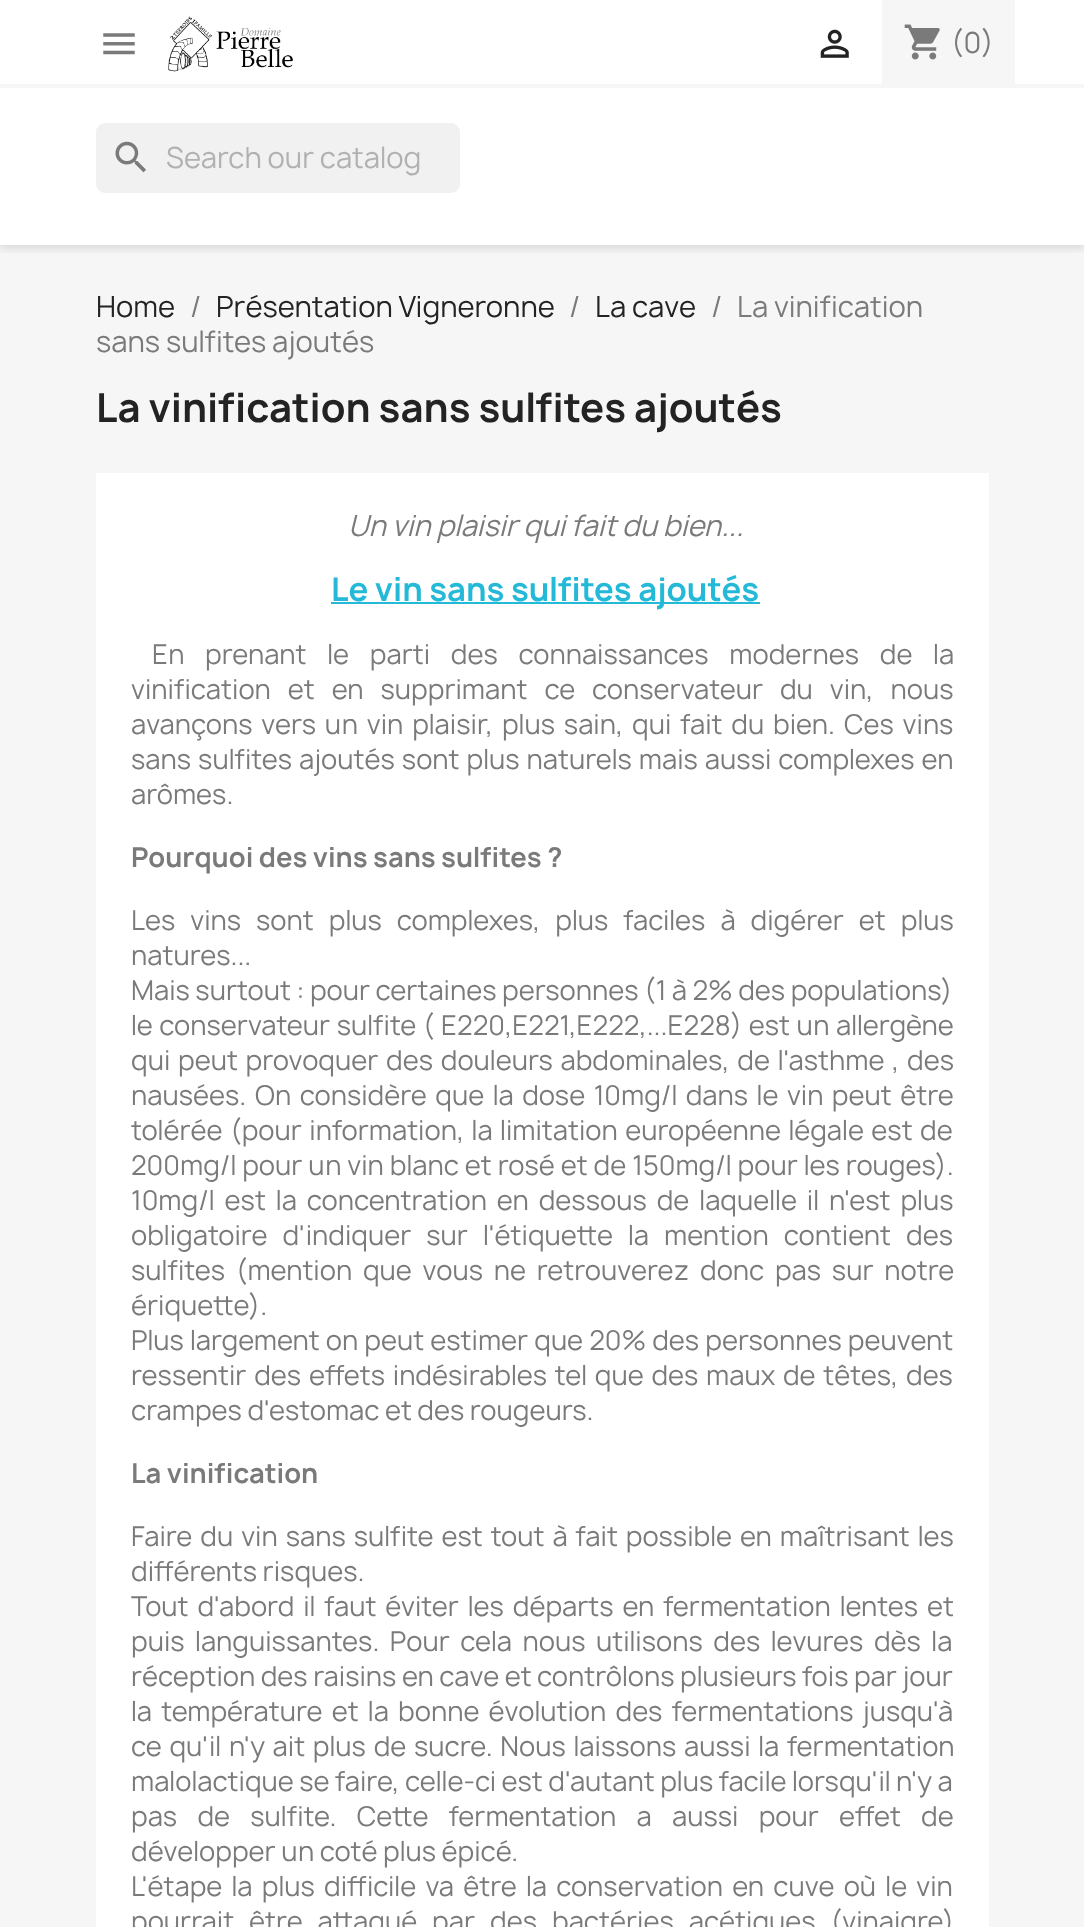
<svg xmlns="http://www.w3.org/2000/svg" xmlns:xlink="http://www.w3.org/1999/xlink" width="1084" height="1927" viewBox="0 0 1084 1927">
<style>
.cls-1{font:28px Manrope;fill:#7a7a7a}
.cls-2{font:28px Manrope;fill:#b1b1b1}
.cls-3{font:28px Manrope;fill:#232323}
.cls-4{font:bold 38.5px Manrope;fill:#232323}
.cls-5{font:italic 28px Manrope;fill:#7a7a7a}
.cls-6{font:bold 31.5px Manrope;fill:#24b9d7}
.cls-7{font:26.25px Manrope;fill:#7a7a7a}
.cls-8{font:bold 26.25px Manrope;fill:#7a7a7a}
</style>
<defs>
<clipPath id="clip1"><rect x="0" y="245" width="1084" height="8"/></clipPath>
</defs>
<rect width="100%" height="100%" fill="#ffffff"/>
<rect fill="#f6f6f6" x="0" y="245" width="1084" height="1682"/>
<g clip-path="url(#clip1)">
<rect fill="#000000" fill-opacity="0.11" filter="blur(4.5px)" x="0" y="4" width="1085" height="245"/>
</g>
<rect fill="#f6f6f6" x="0" y="84" width="1084" height="4"/>
<image xlink:href="image0.png" x="103" y="33" width="32" height="22"/>
<image xlink:href="image1.png" x="168" y="16" width="125" height="56"/>
<image xlink:href="image2.png" x="820" y="29" width="29" height="29"/>
<rect fill="#f6f6f6" x="882" y="0" width="133" height="84"/>
<image xlink:href="image3.png" x="904" y="24" width="36" height="36"/>
<rect fill="#f1f1f1" x="96" y="123" width="364" height="70" rx="9"/>
<image xlink:href="image4.png" x="115" y="141" width="31" height="32"/>
<rect fill="#ffffff" x="96" y="473" width="893" height="1454"/>
<rect fill="#24b9d7" x="331" y="602" width="429" height="2"/>
<text class="cls-1" x="951" y="53">(0)</text>
<text class="cls-2" x="166" y="168">Search our catalog</text>
<text class="cls-3" x="96" y="317">Home</text>
<text class="cls-1" x="190" y="317">/</text>
<text class="cls-3" x="216" y="317">Présentation Vigneronne</text>
<text class="cls-1" x="569" y="317">/</text>
<text class="cls-3" x="595" y="317">La cave</text>
<text class="cls-1" x="711" y="317">/</text>
<text class="cls-1" x="737" y="317">La vinification</text>
<text class="cls-1" x="96" y="352">sans sulfites ajoutés</text>
<text class="cls-4" x="96" y="422">La vinification sans sulfites ajoutés</text>
<text class="cls-5" x="348" y="536">Un vin plaisir qui fait du bien...</text>
<text class="cls-6" x="331" y="601">Le vin sans sulfites ajoutés</text>
<text class="cls-7" x="152" y="664" word-spacing="15.25">En prenant le parti des connaissances modernes de la</text>
<text class="cls-7"><tspan x="131" y="699" word-spacing="11.5">vinification et en supprimant ce conservateur du vin, nous</tspan><tspan x="131" y="734" word-spacing="3.4">avançons vers un vin plaisir, plus sain, qui fait du bien. Ces vins</tspan><tspan x="131" y="769" word-spacing="1.5">sans sulfites ajoutés sont plus naturels mais aussi complexes en</tspan><tspan x="131" y="804">arômes.</tspan></text>
<text class="cls-8" x="131" y="867">Pourquoi des vins sans sulfites ?</text>
<text class="cls-7"><tspan x="131" y="930" word-spacing="9.5">Les vins sont plus complexes, plus faciles à digérer et plus</tspan><tspan x="131" y="965">natures...</tspan><tspan x="131" y="1000">Mais surtout : pour certaines personnes (1 à 2% des populations)</tspan><tspan x="131" y="1035" word-spacing="1">le conservateur sulfite ( E220,E221,E222,...E228) est un allergène</tspan><tspan x="131" y="1070" word-spacing="2.25">qui peut provoquer des douleurs abdominales, de l'asthme , des</tspan><tspan x="131" y="1105" word-spacing="3">nausées. On considère que la dose 10mg/l dans le vin peut être</tspan><tspan x="131" y="1140" word-spacing="2">tolérée (pour information, la limitation européenne légale est de</tspan><tspan x="131" y="1175" word-spacing="0.5">200mg/l pour un vin blanc et rosé et de 150mg/l pour les rouges).</tspan><tspan x="131" y="1210" word-spacing="4.5">10mg/l est la concentration en dessous de laquelle il n'est plus</tspan><tspan x="131" y="1245" word-spacing="9.5">obligatoire d'indiquer sur l'étiquette la mention contient des</tspan><tspan x="131" y="1280" word-spacing="5.25">sulfites (mention que vous ne retrouverez donc pas sur notre</tspan><tspan x="131" y="1315">ériquette).</tspan><tspan x="131" y="1350" word-spacing="0.6">Plus largement on peut estimer que 20% des personnes peuvent</tspan><tspan x="131" y="1385" word-spacing="2.25">ressentir des effets indésirables tel que des maux de têtes, des</tspan><tspan x="131" y="1420">crampes d'estomac et des rougeurs.</tspan></text>
<text class="cls-8" x="131" y="1483">La vinification</text>
<text class="cls-7"><tspan x="131" y="1546" word-spacing="2.5">Faire du vin sans sulfite est tout à fait possible en maîtrisant les</tspan><tspan x="131" y="1581">différents risques.</tspan><tspan x="131" y="1616" word-spacing="3.4">Tout d'abord il faut éviter les départs en fermentation lentes et</tspan><tspan x="131" y="1651" word-spacing="5">puis languissantes. Pour cela nous utilisons des levures dès la</tspan><tspan x="131" y="1686">réception des raisins en cave et contrôlons plusieurs fois par jour</tspan><tspan x="131" y="1721" word-spacing="3.75">la température et la bonne évolution des fermentations jusqu'à</tspan><tspan x="131" y="1756" word-spacing="2.25">ce qu'il n'y ait plus de sucre. Nous laissons aussi la fermentation</tspan><tspan x="131" y="1791">malolactique se faire, celle-ci est d'autant plus facile lorsqu'il n'y a</tspan><tspan x="131" y="1826" word-spacing="14.75">pas de sulfite. Cette fermentation a aussi pour effet de</tspan><tspan x="131" y="1861">développer un coté plus épicé.</tspan><tspan x="131" y="1896" word-spacing="3.75">L'étape la plus difficile va être la conservation en cuve où le vin</tspan><tspan x="131" y="1931" word-spacing="9.5">pourrait être attaqué par des bactéries acétiques (vinaigre)</tspan></text>
</svg>
